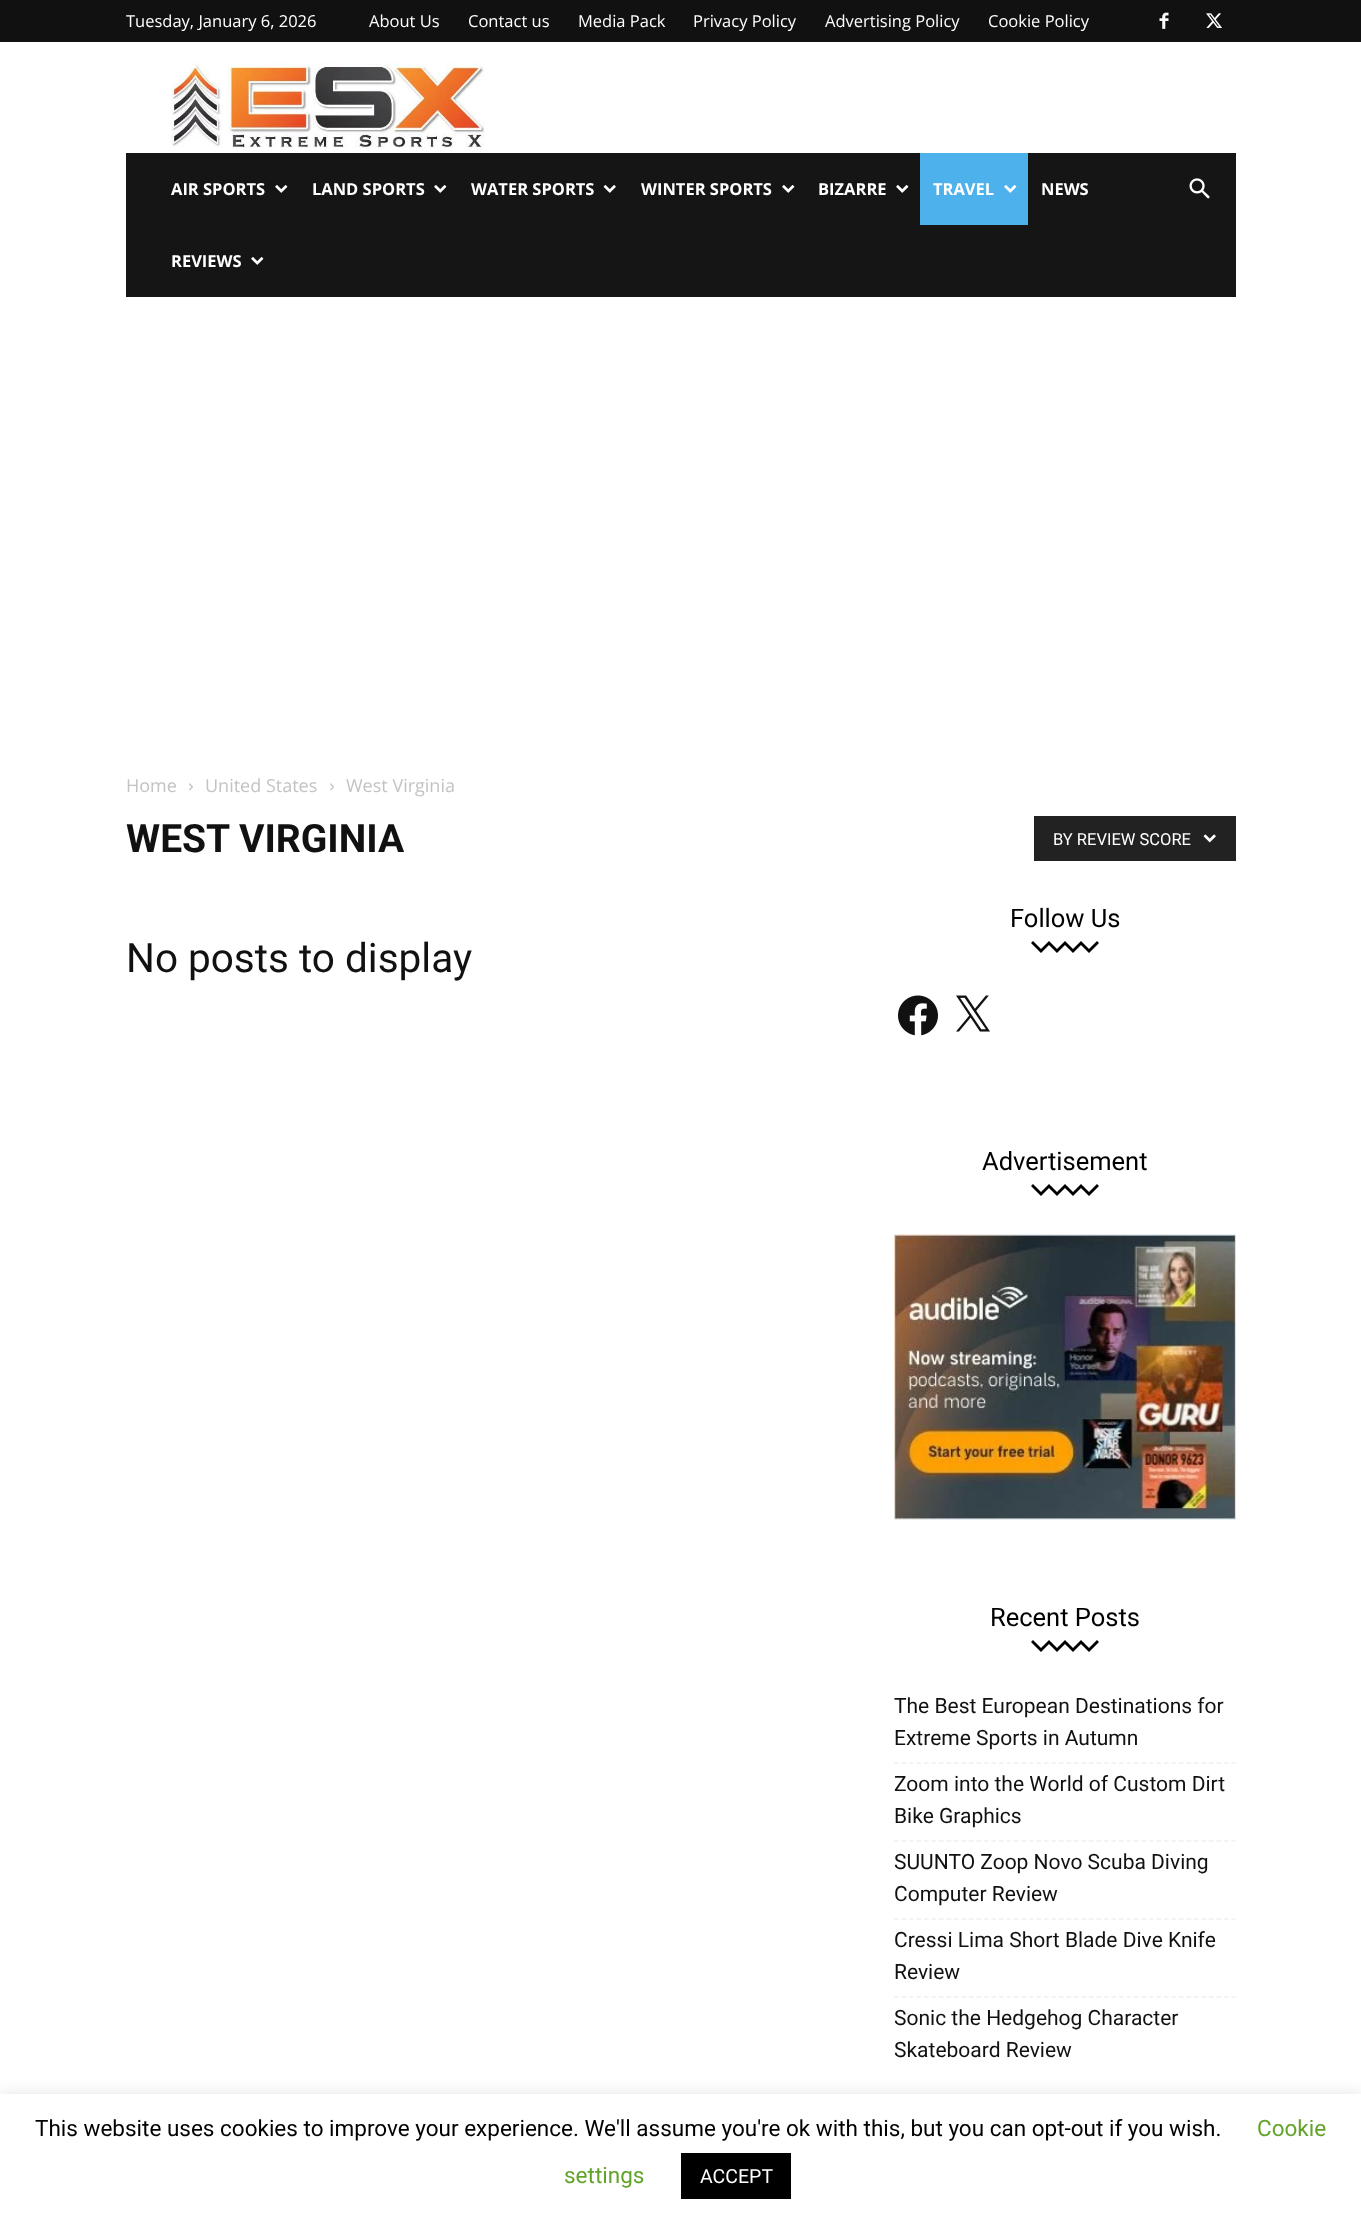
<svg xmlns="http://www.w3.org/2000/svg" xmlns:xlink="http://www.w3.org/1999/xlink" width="1361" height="2224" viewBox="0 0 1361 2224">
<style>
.cls-1{font:16.5px Open Sans;fill:#ffffff}
.cls-2{font:bold 16.5px Open Sans;fill:#ffffff}
.cls-3{font:18px Open Sans;fill:#c3c3c3}
.cls-4{font:bold 39px Roboto;fill:#111111}
.cls-5{font:16.5px Roboto;fill:#ffffff}
.cls-6{font:40.5px Roboto;fill:#111111}
.cls-7{font:25.5px Roboto;fill:#000000}
.cls-8{font:21px Roboto;fill:#111111}
.cls-9{font:22.5px Roboto;fill:#000000}
.cls-10{font:22.5px Roboto;fill:#62a329}
.cls-11{font:19.5px Roboto;fill:#ffffff}
</style>
<rect width="100%" height="100%" fill="#ffffff"/>
<rect fill="#111111" x="0" y="0" width="1361" height="42"/>
<image xlink:href="image0.png" x="1159" y="12" width="10" height="17"/>
<image xlink:href="image1.png" x="1206" y="13" width="16" height="15"/>
<image xlink:href="image2.png" x="171" y="63" width="314" height="85"/>
<rect fill="#151515" x="126" y="153" width="1110" height="144"/>
<image xlink:href="image3.png" x="275" y="185" width="13" height="8"/>
<image xlink:href="image3.png" x="434" y="185" width="13" height="8"/>
<image xlink:href="image4.png" x="603" y="185" width="13" height="8"/>
<image xlink:href="image3.png" x="782" y="185" width="13" height="8"/>
<image xlink:href="image3.png" x="896" y="185" width="13" height="8"/>
<rect fill="#4db2ec" x="920" y="153" width="108" height="72"/>
<image xlink:href="image5.png" x="1004" y="185" width="13" height="8"/>
<image xlink:href="image3.png" x="251" y="257" width="13" height="8"/>
<image xlink:href="image6.png" x="1189" y="178" width="21" height="21"/>
<image xlink:href="image7.png" x="189" y="783" width="4" height="8"/>
<image xlink:href="image7.png" x="330" y="783" width="4" height="8"/>
<rect fill="#222222" x="1034" y="816" width="202" height="45"/>
<image xlink:href="image8.png" x="1203" y="834" width="13" height="9"/>
<path fill="#000000" d="M1099 943L1089 953L1081 945L1073 953L1065 945L1057 953L1049 945L1041 953L1031 943L1033 941L1041 949L1049 941L1057 949L1065 941L1073 949L1081 941L1089 949L1097 941Z"/>
<image xlink:href="image9.png" x="898" y="995" width="40" height="41"/>
<image xlink:href="image10.png" x="956" y="995" width="34" height="37"/>
<path fill="#000000" d="M1099 1186L1089 1196L1081 1188L1073 1196L1065 1188L1057 1196L1049 1188L1041 1196L1031 1186L1033 1184L1041 1192L1049 1184L1057 1192L1065 1184L1073 1192L1081 1184L1089 1192L1097 1184Z"/>
<image xlink:href="image11.png" x="894" y="1234" width="342" height="286"/>
<path fill="#000000" d="M1099 1642L1089 1652L1081 1644L1073 1652L1065 1644L1057 1652L1049 1644L1041 1652L1031 1642L1033 1640L1041 1648L1049 1640L1057 1648L1065 1640L1073 1648L1081 1640L1089 1648L1097 1640Z"/>
<path fill="none" stroke="#f1f1f1" stroke-width="1.5" stroke-dasharray="4.5 3" d="M894 1763H1236"/>
<path fill="none" stroke="#f1f1f1" stroke-width="1.5" stroke-dasharray="4.5 3" d="M894 1841H1236"/>
<path fill="none" stroke="#f1f1f1" stroke-width="1.5" stroke-dasharray="4.5 3" d="M894 1919H1236"/>
<path fill="none" stroke="#f1f1f1" stroke-width="1.5" stroke-dasharray="4.5 3" d="M894 1997H1236"/>
<rect fill="#acabab" fill-opacity="0.3" filter="blur(7.5px)" x="0" y="2093" width="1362" height="130"/>
<rect fill="#ffffff" x="0" y="2094" width="1361" height="130"/>
<rect fill="#000000" x="681" y="2153" width="110" height="46"/>
<text class="cls-1" x="126" y="27">Tuesday, January 6, 2026</text>
<text class="cls-1" x="369" y="27">About Us</text>
<text class="cls-1" x="468" y="27">Contact us</text>
<text class="cls-1" x="578" y="27">Media Pack</text>
<text class="cls-1" x="693" y="27">Privacy Policy</text>
<text class="cls-1" x="825" y="27">Advertising Policy</text>
<text class="cls-1" x="988" y="27">Cookie Policy</text>
<text class="cls-2" x="171" y="195">AIR SPORTS</text>
<text class="cls-2" x="312" y="195">LAND SPORTS</text>
<text class="cls-2" x="471" y="195">WATER SPORTS</text>
<text class="cls-2" x="641" y="195">WINTER SPORTS</text>
<text class="cls-2" x="818" y="195">BIZARRE</text>
<text class="cls-2" x="933" y="195">TRAVEL</text>
<text class="cls-2" x="1041" y="195">NEWS</text>
<text class="cls-2" x="171" y="267">REVIEWS</text>
<text class="cls-3" x="126" y="792">Home</text>
<text class="cls-3" x="205" y="792">United States</text>
<text class="cls-3" x="346" y="792">West Virginia</text>
<text class="cls-4" x="126" y="852">WEST VIRGINIA</text>
<text class="cls-5" x="1053" y="845">BY REVIEW SCORE</text>
<text class="cls-6" x="126" y="972">No posts to display</text>
<text class="cls-7" x="1010" y="927">Follow Us</text>
<text class="cls-7" x="982" y="1170">Advertisement</text>
<text class="cls-7" x="990" y="1626">Recent Posts</text>
<text class="cls-8"><tspan x="894" y="1713">The Best European Destinations for</tspan><tspan x="894" y="1745">Extreme Sports in Autumn</tspan></text>
<text class="cls-8"><tspan x="894" y="1791">Zoom into the World of Custom Dirt</tspan><tspan x="894" y="1823">Bike Graphics</tspan></text>
<text class="cls-8"><tspan x="894" y="1869">SUUNTO Zoop Novo Scuba Diving</tspan><tspan x="894" y="1901">Computer Review</tspan></text>
<text class="cls-8"><tspan x="894" y="1947">Cressi Lima Short Blade Dive Knife</tspan><tspan x="894" y="1979">Review</tspan></text>
<text class="cls-8"><tspan x="894" y="2025">Sonic the Hedgehog Character</tspan><tspan x="894" y="2057">Skateboard Review</tspan></text>
<text class="cls-9" x="35" y="2136">This website uses cookies to improve your experience. We'll assume you're ok with this, but you can opt-out if you wish.</text>
<text class="cls-10" x="1257" y="2136">Cookie</text>
<text class="cls-10" x="564" y="2183">settings</text>
<text class="cls-11" x="700" y="2183">ACCEPT</text>
</svg>
